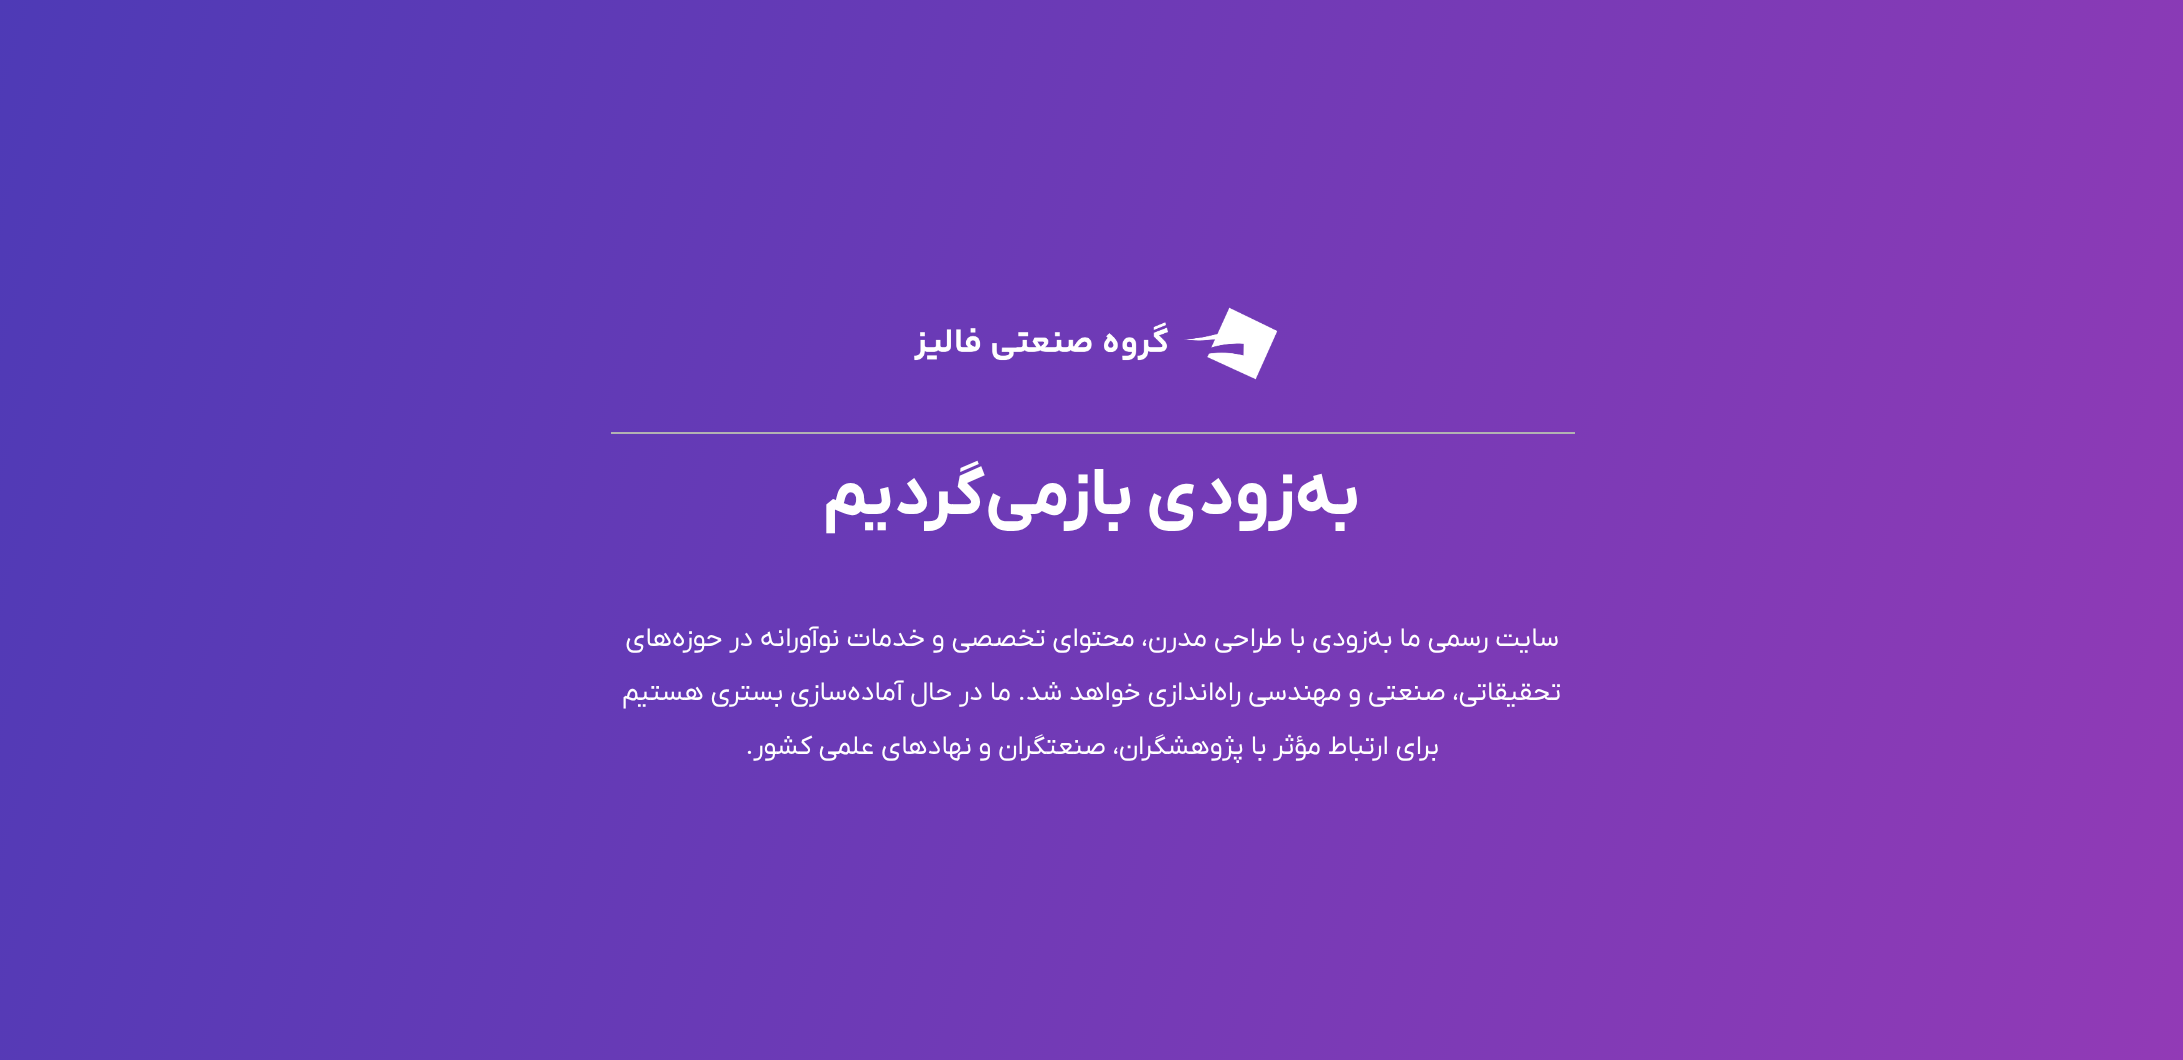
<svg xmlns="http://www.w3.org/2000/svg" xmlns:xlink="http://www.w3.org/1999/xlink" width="2183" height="1060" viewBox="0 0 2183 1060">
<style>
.cls-1{font:bold 67.5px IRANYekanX;direction:rtl;fill:#ffffff}
.cls-2{font:27px IRANYekanX;direction:rtl;fill:#ffffff}
</style>
<defs>
<linearGradient id="g1" gradientUnits="userSpaceOnUse" x1="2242" y1="860" x2="-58" y2="201"><stop offset="0" stop-color="#923ab6"/><stop offset="1" stop-color="#4e3ab6"/></linearGradient>
</defs>
<rect width="100%" height="100%" fill="#ffffff"/>
<rect fill="url(#g1)" x="0" y="0" width="2183" height="1060"/>
<rect fill="#b2b2b2" x="611" y="432" width="964" height="2"/>
<image xlink:href="image0.png" x="914" y="307" width="364" height="73"/>
<text class="cls-1" x="1360" y="514">به‌زودی بازمی‌گردیم</text>
<text class="cls-2" x="1559" y="646">سایت رسمی ما به‌زودی با طراحی مدرن، محتوای تخصصی و خدمات نوآورانه در حوزه‌های</text>
<text class="cls-2" x="1561" y="700">تحقیقاتی، صنعتی و مهندسی راه‌اندازی خواهد شد. ما در حال آماده‌سازی بستری هستیم</text>
<text class="cls-2" x="1439" y="754">برای ارتباط مؤثر با پژوهشگران، صنعتگران و نهادهای علمی کشور.</text>
</svg>
